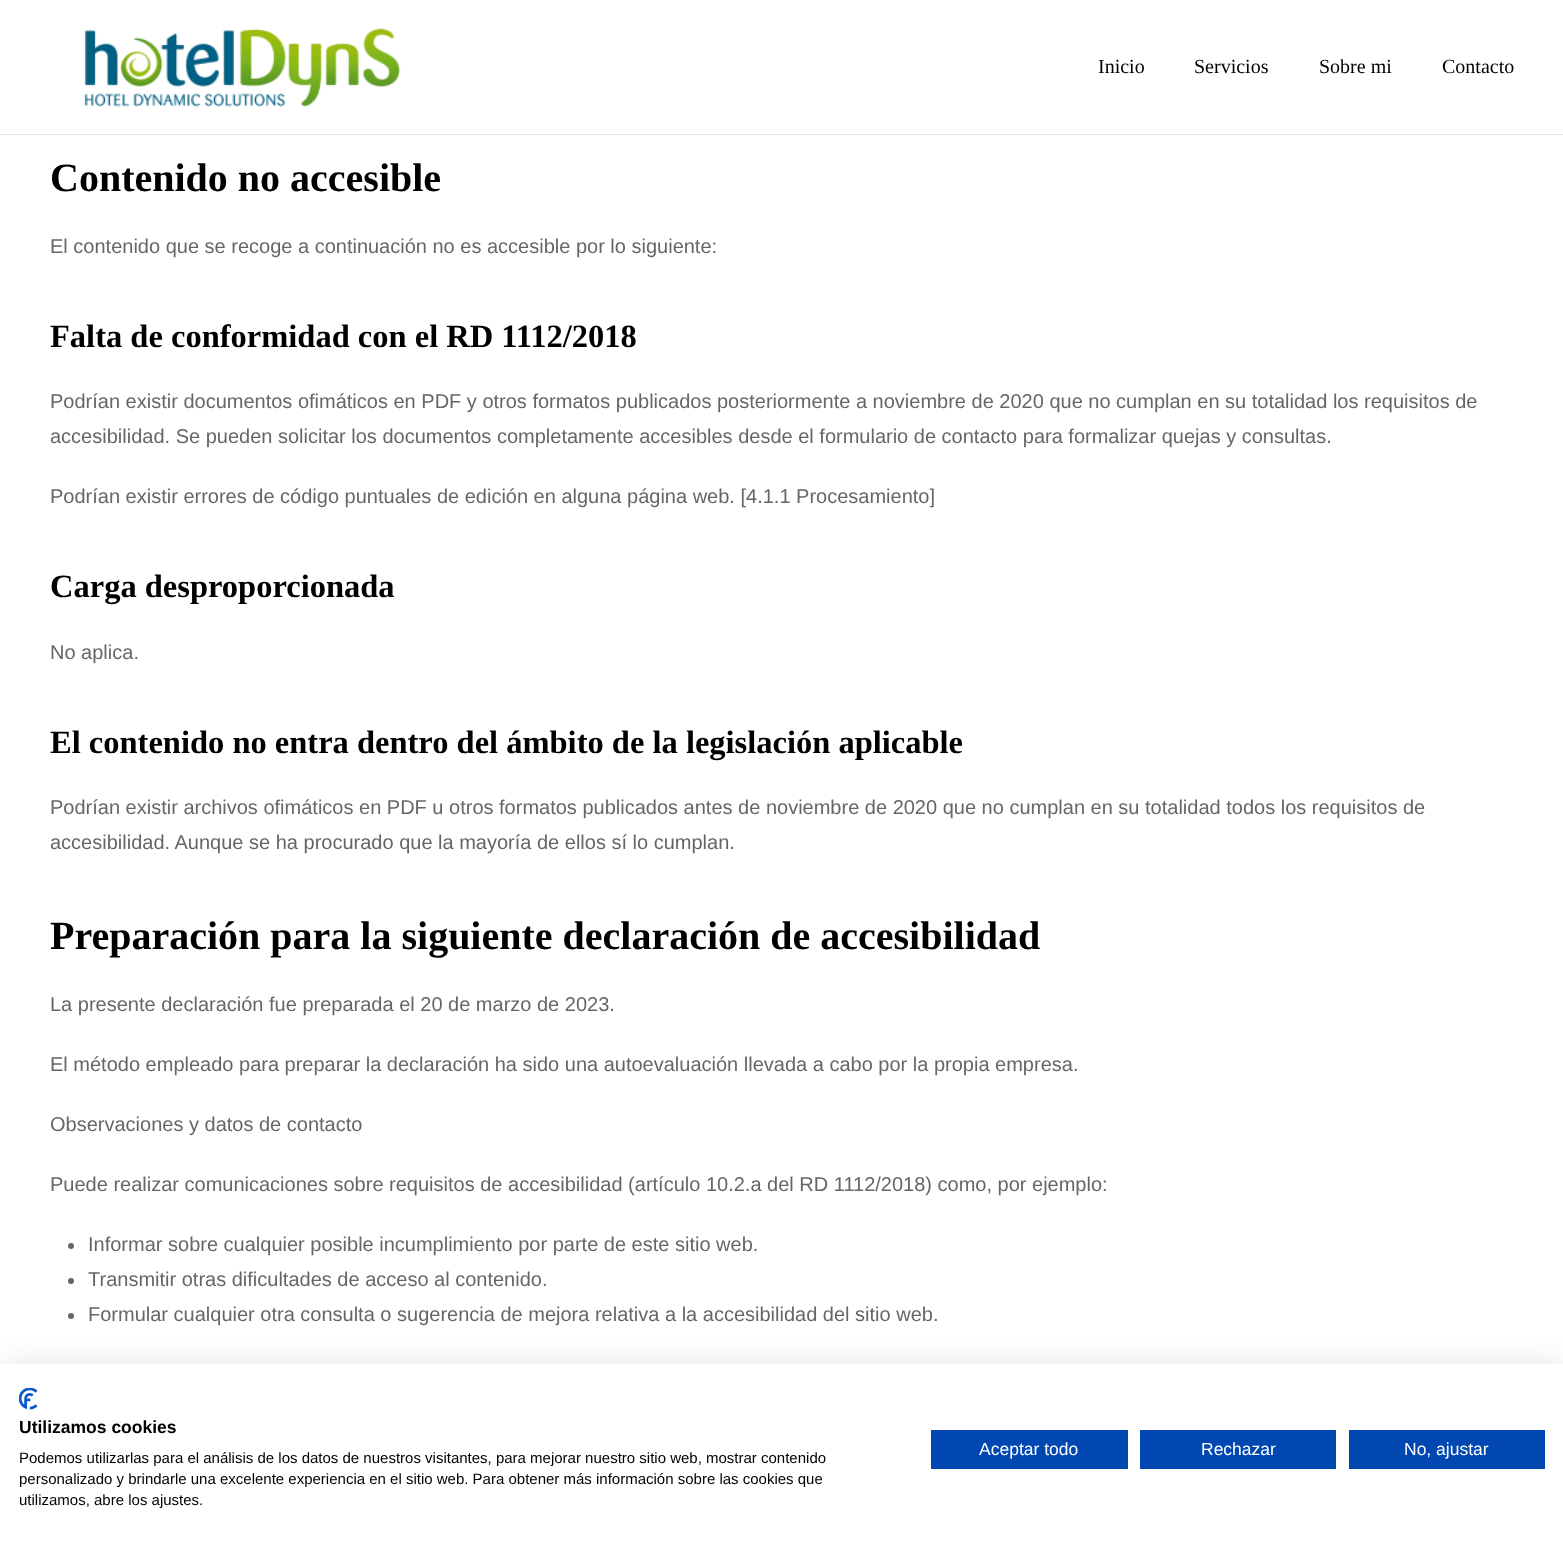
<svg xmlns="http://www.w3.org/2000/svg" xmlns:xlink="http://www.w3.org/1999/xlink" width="1563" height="1544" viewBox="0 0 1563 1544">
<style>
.cls-1{font:20px Liberation Serif;fill:#000000}
.cls-2{font:bold 40px Liberation Serif;fill:#000000}
.cls-3{font:20px Liberation Sans;fill:#666666}
.cls-4{font:bold 32.5px Liberation Serif;fill:#000000}
.cls-5{font:bold 17.5px Liberation Sans;fill:#000000}
.cls-6{font:15px Liberation Sans;fill:#000000}
.cls-7{font:17.5px Liberation Sans;fill:#ffffff}
</style>
<rect width="100%" height="100%" fill="#ffffff"/>
<rect fill="#e8e8e8" x="0" y="134" width="1563" height="1"/>
<image xlink:href="image0.png" x="84" y="28" width="317" height="79"/>
<circle fill="#666666" cx="71" cy="1246" r="3"/>
<circle fill="#666666" cx="71" cy="1281" r="3"/>
<circle fill="#666666" cx="71" cy="1316" r="3"/>
<rect fill="#000000" fill-opacity="0.1" filter="blur(15px)" x="0" y="1364" width="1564" height="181"/>
<rect fill="#ffffff" x="0" y="1364" width="1563" height="180"/>
<image xlink:href="image1.png" x="19" y="1388" width="19" height="22"/>
<rect fill="#0047b2" x="931" y="1430" width="197" height="39"/>
<rect fill="#0047b2" x="1140" y="1430" width="196" height="39"/>
<rect fill="#0047b2" x="1349" y="1430" width="196" height="39"/>
<text class="cls-1" x="1098" y="73">Inicio</text>
<text class="cls-1" x="1194" y="73">Servicios</text>
<text class="cls-1" x="1319" y="73">Sobre mi</text>
<text class="cls-1" x="1442" y="73">Contacto</text>
<text class="cls-2" x="50" y="191">Contenido no accesible</text>
<text class="cls-3" x="50" y="253">El contenido que se recoge a continuación no es accesible por lo siguiente:</text>
<text class="cls-4" x="50" y="347">Falta de conformidad con el RD 1112/2018</text>
<text class="cls-3"><tspan x="50" y="408">Podrían existir documentos ofimáticos en PDF y otros formatos publicados posteriormente a noviembre de 2020 que no cumplan en su totalidad los requisitos de</tspan><tspan x="50" y="443">accesibilidad. Se pueden solicitar los documentos completamente accesibles desde el formulario de contacto para formalizar quejas y consultas.</tspan></text>
<text class="cls-3" x="50" y="503">Podrían existir errores de código puntuales de edición en alguna página web. [4.1.1 Procesamiento]</text>
<text class="cls-4" x="50" y="597">Carga desproporcionada</text>
<text class="cls-3" x="50" y="659">No aplica.</text>
<text class="cls-4" x="50" y="753">El contenido no entra dentro del ámbito de la legislación aplicable</text>
<text class="cls-3"><tspan x="50" y="814">Podrían existir archivos ofimáticos en PDF u otros formatos publicados antes de noviembre de 2020 que no cumplan en su totalidad todos los requisitos de</tspan><tspan x="50" y="849">accesibilidad. Aunque se ha procurado que la mayoría de ellos sí lo cumplan.</tspan></text>
<text class="cls-2" x="50" y="949">Preparación para la siguiente declaración de accesibilidad</text>
<text class="cls-3" x="50" y="1011">La presente declaración fue preparada el 20 de marzo de 2023.</text>
<text class="cls-3" x="50" y="1071">El método empleado para preparar la declaración ha sido una autoevaluación llevada a cabo por la propia empresa.</text>
<text class="cls-3" x="50" y="1131">Observaciones y datos de contacto</text>
<text class="cls-3" x="50" y="1191">Puede realizar comunicaciones sobre requisitos de accesibilidad (artículo 10.2.a del RD 1112/2018) como, por ejemplo:</text>
<text class="cls-3"><tspan x="88" y="1251">Informar sobre cualquier posible incumplimiento por parte de este sitio web.</tspan><tspan x="88" y="1286">Transmitir otras dificultades de acceso al contenido.</tspan><tspan x="88" y="1321">Formular cualquier otra consulta o sugerencia de mejora relativa a la accesibilidad del sitio web.</tspan></text>
<text class="cls-5" x="19" y="1433">Utilizamos cookies</text>
<text class="cls-6"><tspan x="19" y="1463">Podemos utilizarlas para el análisis de los datos de nuestros visitantes, para mejorar nuestro sitio web, mostrar contenido</tspan><tspan x="19" y="1484">personalizado y brindarle una excelente experiencia en el sitio web. Para obtener más información sobre las cookies que</tspan><tspan x="19" y="1505">utilizamos, abre los ajustes.</tspan></text>
<text class="cls-7" x="979" y="1455">Aceptar todo</text>
<text class="cls-7" x="1201" y="1455">Rechazar</text>
<text class="cls-7" x="1404" y="1455">No, ajustar</text>
</svg>
